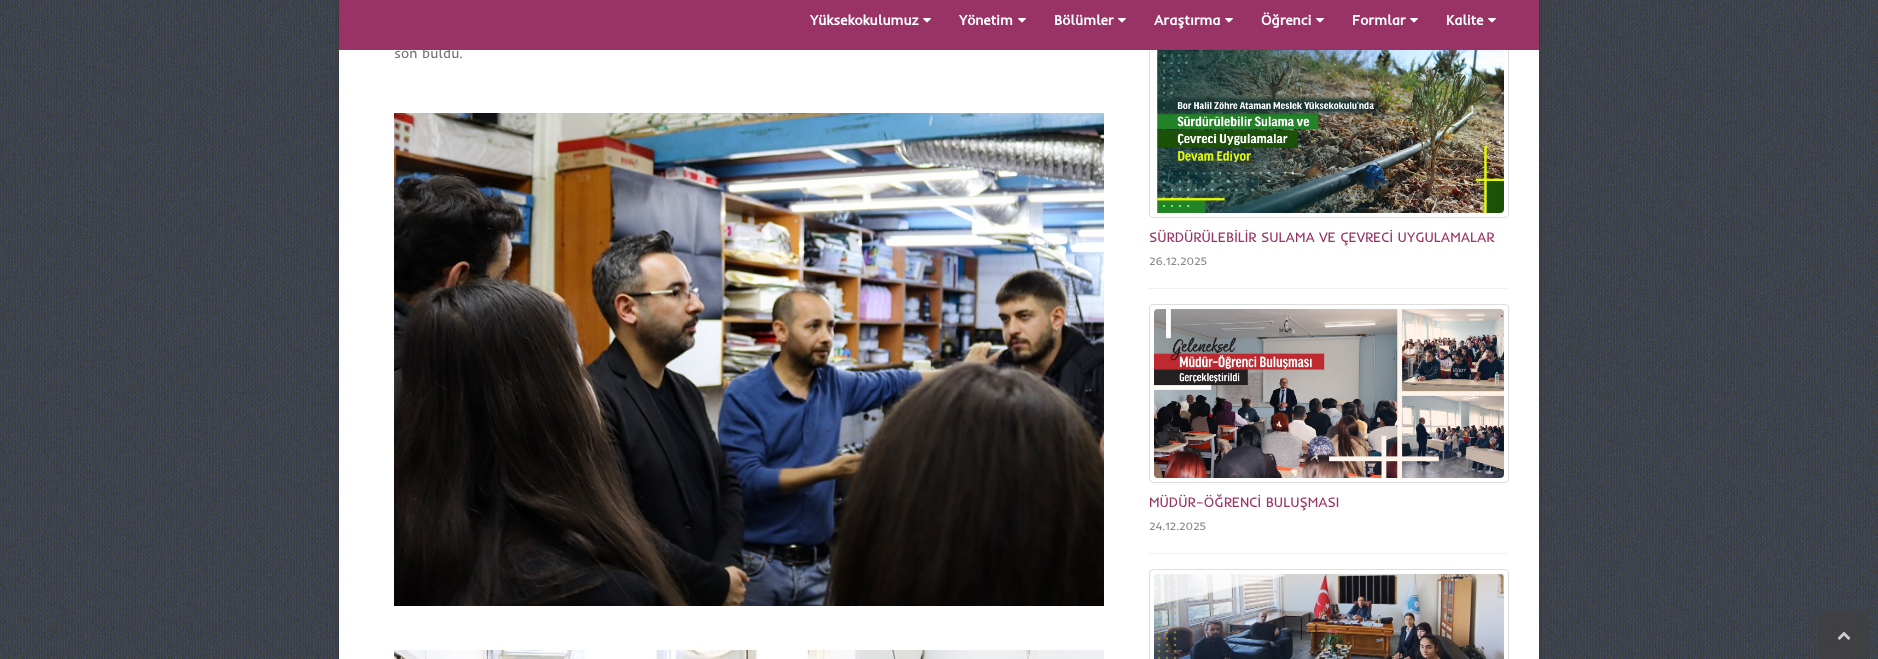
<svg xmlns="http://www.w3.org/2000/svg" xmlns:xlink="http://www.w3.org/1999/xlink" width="1878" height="659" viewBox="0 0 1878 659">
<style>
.cls-1{font:14px Inder;fill:#777777}
.cls-2{font:bold 14px Inder;fill:#ffffff}
.cls-3{font:14px Inder;fill:#993366}
.cls-4{font:11.25px Inder;fill:#888888}
</style>
<rect width="100%" height="100%" fill="#ffffff"/>
<image xlink:href="image0.png" x="0" y="0" width="1878" height="659"/>
<rect fill="#000000" fill-opacity="0.15" filter="blur(2px)" x="339" y="-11" width="1200" height="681" rx="5"/>
<rect fill="#ffffff" x="339" y="50" width="1200" height="609"/>
<rect fill="none" stroke="#dddddd" x="1149.5" y="39.5" width="359" height="178" rx="3.5"/>
<image xlink:href="image4.png" x="1157" y="50" width="347" height="163"/>
<rect fill="#000000" fill-opacity="0.1" filter="blur(1.5px)" x="339" y="-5" width="1200" height="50"/>
<image xlink:href="image2.png" x="394" y="113" width="710" height="493"/>
<image xlink:href="image3.png" x="394" y="650" width="710" height="9"/>
<path fill="none" stroke="#e2e2e2" stroke-dasharray="1 1" d="M1149 288.5H1509"/>
<path fill="none" stroke="#e2e2e2" stroke-dasharray="1 1" d="M1149 553.5H1509"/>
<rect fill="none" stroke="#dddddd" x="1149.5" y="304.5" width="359" height="178" rx="3.5"/>
<image xlink:href="image5.png" x="1154" y="309" width="350" height="169"/>
<rect fill="none" stroke="#dddddd" x="1149.5" y="569.5" width="359" height="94" rx="3.5"/>
<image xlink:href="image6.png" x="1154" y="574" width="350" height="85"/>
<path fill="#404040" fill-opacity="0.75" d="M1826 611H1861C1865 611 1868 614 1868 618V659H1819V618C1819 614 1822 611 1826 611Z"/>
<image xlink:href="image7.png" x="1837" y="631" width="14" height="9"/>
<text class="cls-1" x="394" y="58">son buldu.</text>
<rect fill="#993366" x="339" y="0" width="1200" height="50"/>
<image xlink:href="image1.png" x="1488" y="18" width="8" height="5"/>
<text class="cls-2" x="1446" y="25">Kalite</text>
<image xlink:href="image1.png" x="1410" y="18" width="8" height="5"/>
<text class="cls-2" x="1352" y="25">Formlar</text>
<image xlink:href="image1.png" x="1316" y="18" width="8" height="5"/>
<text class="cls-2" x="1261" y="25">Öğrenci</text>
<image xlink:href="image1.png" x="1225" y="18" width="8" height="5"/>
<text class="cls-2" x="1154" y="25">Araştırma</text>
<image xlink:href="image1.png" x="1118" y="18" width="8" height="5"/>
<text class="cls-2" x="1054" y="25">Bölümler</text>
<image xlink:href="image1.png" x="1018" y="18" width="8" height="5"/>
<text class="cls-2" x="959" y="25">Yönetim</text>
<image xlink:href="image1.png" x="923" y="18" width="8" height="5"/>
<text class="cls-2" x="810" y="25">Yüksekokulumuz</text>
<text class="cls-3" x="1149" y="242">SÜRDÜRÜLEBİLİR SULAMA VE ÇEVRECİ UYGULAMALAR</text>
<text class="cls-4" x="1149" y="265">26.12.2025</text>
<text class="cls-3" x="1149" y="507">MÜDÜR–ÖĞRENCİ BULUŞMASI</text>
<text class="cls-4" x="1149" y="530">24.12.2025</text>
</svg>
